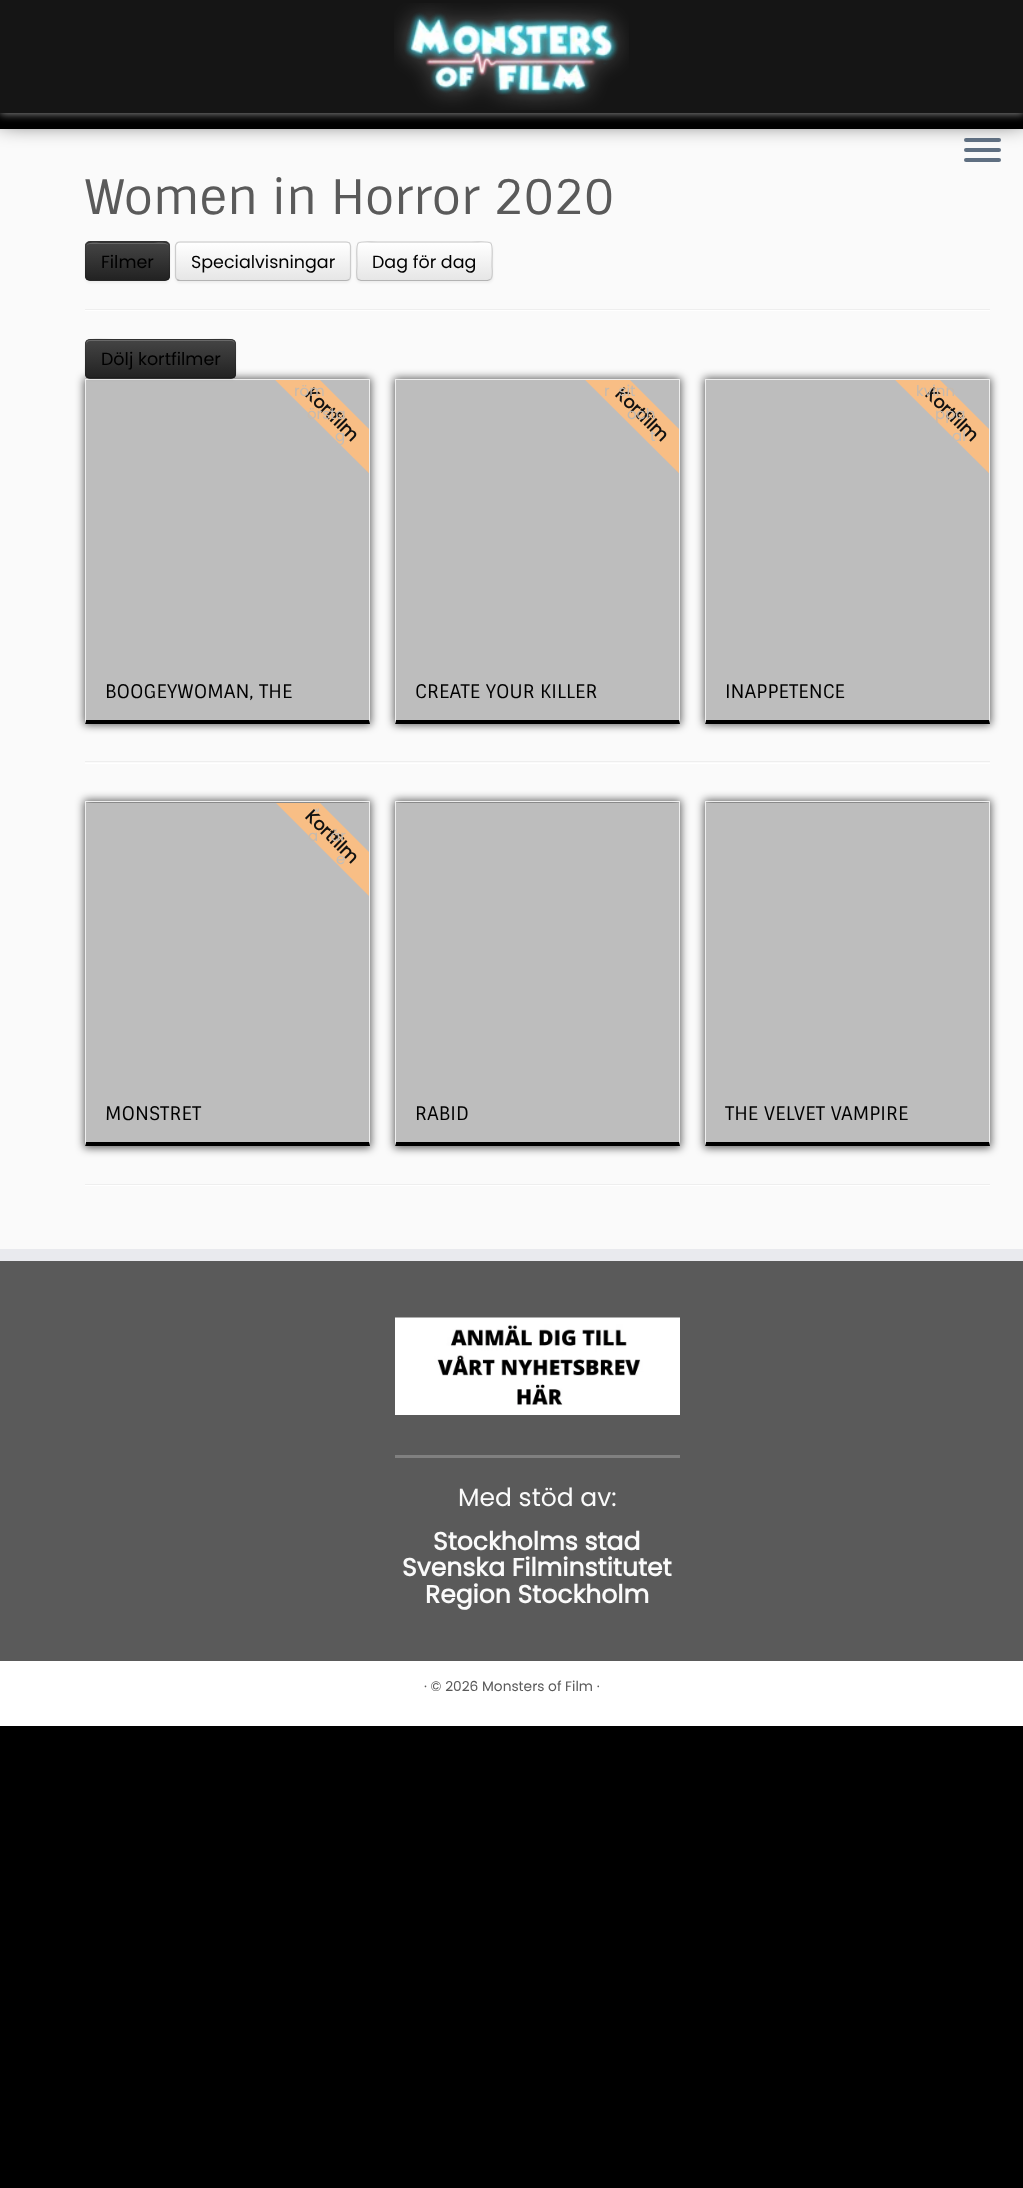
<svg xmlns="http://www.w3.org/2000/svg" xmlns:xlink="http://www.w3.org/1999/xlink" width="1023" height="2188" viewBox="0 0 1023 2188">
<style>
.cls-1{font:47.5px Sintony;fill:#5a5a5a}
.cls-2{font:17.5px Poppins;fill:#000000}
.cls-3{font:bold 17.5px Poppins;fill:#111111}
.cls-4{font:15px Poppins;fill:#c2bdb8}
.cls-5{font:15px Poppins;fill:#c5baaf}
.cls-6{font:18.75px Sintony;fill:#000000}
.cls-7{font:15px Poppins;fill:#bdb8b2}
.cls-8{font:25px Poppins;fill:#fafafa}
.cls-9{font:bold 25px Poppins;fill:#fafafa}
.cls-10{font:13.75px Poppins;fill:#5a5a5a}
</style>
<defs>
<clipPath id="clip1"><path d="M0 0H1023V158H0ZM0 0H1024V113H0Z" clip-rule="evenodd"/></clipPath>
<clipPath id="clip2"><path d="M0 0H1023V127H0ZM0 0H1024V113H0Z" clip-rule="evenodd"/></clipPath>
<clipPath id="clip3"><rect x="85" y="241" width="85" height="40" rx="5"/></clipPath>
<linearGradient id="g1" gradientUnits="userSpaceOnUse" x1="128" y1="243" x2="128" y2="280"><stop offset="0" stop-color="#444444"/><stop offset="1" stop-color="#222222"/></linearGradient>
<clipPath id="clip4"><rect x="175" y="241" width="176" height="40" rx="5"/></clipPath>
<linearGradient id="g2" gradientUnits="userSpaceOnUse" x1="263" y1="243" x2="263" y2="280"><stop offset="0" stop-color="#ffffff"/><stop offset="1" stop-color="#e6e6e6"/></linearGradient>
<clipPath id="clip5"><rect x="356" y="241" width="137" height="40" rx="5"/></clipPath>
<linearGradient id="g3" gradientUnits="userSpaceOnUse" x1="424" y1="243" x2="424" y2="280"><stop offset="0" stop-color="#ffffff"/><stop offset="1" stop-color="#e6e6e6"/></linearGradient>
<clipPath id="clip6"><rect x="85" y="339" width="151" height="40" rx="5"/></clipPath>
<linearGradient id="g4" gradientUnits="userSpaceOnUse" x1="161" y1="340" x2="161" y2="378"><stop offset="0" stop-color="#444444"/><stop offset="1" stop-color="#222222"/></linearGradient>
<clipPath id="clip7"><rect x="86" y="380" width="283" height="283"/></clipPath>
<clipPath id="clip8"><rect x="396" y="380" width="283" height="283"/></clipPath>
<clipPath id="clip9"><rect x="706" y="380" width="283" height="283"/></clipPath>
<clipPath id="clip10"><rect x="86" y="803" width="283" height="282"/></clipPath>
</defs>
<rect width="100%" height="100%" fill="#000000"/>
<rect fill="#fafafa" x="0" y="129" width="1023" height="1120"/>
<g clip-path="url(#clip1)">
<rect fill="#000000" filter="blur(12.5px)" x="0" y="6" width="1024" height="113"/>
</g>
<g clip-path="url(#clip2)">
<rect fill="#888888" filter="blur(4px)" x="0" y="1" width="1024" height="113"/>
</g>
<rect fill="#1e1e1e" fill-opacity="0.7" x="0" y="0" width="1023" height="113"/>
<image xlink:href="image0.png" x="394" y="3" width="235" height="107"/>
<rect fill="#5f6f81" x="964" y="138" width="37" height="4" rx="2"/>
<rect fill="#5f6f81" x="964" y="148" width="37" height="4" rx="2"/>
<rect fill="#5f6f81" x="964" y="158" width="37" height="4" rx="2"/>
<rect fill="#000000" fill-opacity="0.05" filter="blur(1px)" x="85" y="243" width="85" height="40" rx="5"/>
<rect fill="#363636" x="85" y="241" width="85" height="40" rx="5"/>
<g clip-path="url(#clip3)">
<rect fill="url(#g1)" x="85" y="243" width="85" height="37"/>
</g>
<path fill="#ffffff" fill-opacity="0.2" d="M90 244H165C167 244 169 245 169 248C169 240 157 243 152 243H102C98 243 86 240 86 248C86 245 88 244 90 244Z"/>
<path fill="none" stroke="#000000" stroke-opacity="0.25" stroke-width="1.2" d="M168 279.5L165.5 280.5H89.5L87 279.5"/>
<path fill="none" stroke="#000000" stroke-opacity="0.1" stroke-width="1.2" d="M87 279.5C85 277.5 85.5 273.5 85.5 271V261C85.5 240.5 82 242 102.5 242H152.5C173 242 169.5 240.5 169.5 261V271C169.5 273.5 170 277.5 168 279.5"/>
<rect fill="#000000" fill-opacity="0.05" filter="blur(1px)" x="175" y="243" width="176" height="40" rx="5"/>
<rect fill="#f5f5f5" x="175" y="241" width="176" height="40" rx="5"/>
<g clip-path="url(#clip4)">
<rect fill="url(#g2)" x="175" y="243" width="176" height="37"/>
</g>
<path fill="none" stroke="#b3b3b3" stroke-width="1.2" d="M349.5 279.5C348.5 280 347.5 280.5 346 280.5H180C179 280.5 177.5 280 177 279.5"/>
<path fill="none" stroke="#cccccc" stroke-width="1.2" d="M177 279.5C176 278.5 175.5 277.5 175.5 276V246C175.5 245 176 244 177 243C177.5 242.5 179 242 180 242H346C347.5 242 348.5 242.5 349.5 243C350 244 350.5 245 350.5 246V276C350.5 277.5 350 278.5 349.5 279.5"/>
<rect fill="#000000" fill-opacity="0.05" filter="blur(1px)" x="356" y="243" width="137" height="40" rx="5"/>
<rect fill="#f5f5f5" x="356" y="241" width="137" height="40" rx="5"/>
<g clip-path="url(#clip5)">
<rect fill="url(#g3)" x="356" y="243" width="137" height="37"/>
</g>
<path fill="none" stroke="#b3b3b3" stroke-width="1.2" d="M490.5 279.5L487.5 280.5H361L358 279.5"/>
<path fill="none" stroke="#cccccc" stroke-width="1.2" d="M358 279.5C355.5 276.5 357 269 357 266C357 237 352 242 382.5 242H466.5C497 242 492 237 492 266C492 269 493.5 276.5 490.5 279.5"/>
<rect fill="#eeeeee" x="85" y="309" width="905" height="1"/>
<rect fill="#ffffff" x="85" y="310" width="905" height="1"/>
<rect fill="#000000" fill-opacity="0.63" filter="blur(4px)" x="84" y="378" width="287" height="347"/>
<rect fill="#bdbdbd" x="86" y="380" width="283" height="340"/>
<rect fill="#eeeeee" x="85" y="379" width="285" height="1"/>
<path fill="#eeeeee" d="M370 379V724L369 720V380Z"/>
<path fill="#000000" d="M370 724H85L86 720H369Z"/>
<path fill="#eeeeee" d="M85 724V379L86 380V720Z"/>
<rect fill="#000000" fill-opacity="0.05" filter="blur(1px)" x="85" y="340" width="151" height="40" rx="5"/>
<rect fill="#363636" x="85" y="339" width="151" height="40" rx="5"/>
<g clip-path="url(#clip6)">
<rect fill="url(#g4)" x="85" y="340" width="151" height="38"/>
</g>
<path fill="#696969" d="M90 341H231C233 341 235 343 235 345C235 343 234 341 232 340H90C87 340 86 342 86 345C86 343 88 341 90 341Z"/>
<path fill="none" stroke="#000000" stroke-opacity="0.25" stroke-width="1.2" d="M234.5 377C233.5 377.5 232.5 378 231 378H90C89 378 87.5 377.5 87 377"/>
<path fill="none" stroke="#000000" stroke-opacity="0.1" stroke-width="1.2" d="M87 377C84 374 85.5 366.5 85.5 364C85.5 333.5 80.5 339.5 113.5 339.5H207.5C240.5 339.5 235.5 333.5 235.5 364C235.5 366.5 237 374 234.5 377"/>
<g clip-path="url(#clip7)">
<path fill="#f8be85" d="M273 333L413 473L391 495L251 356Z"/>
</g>
<rect fill="#000000" fill-opacity="0.63" filter="blur(4px)" x="394" y="378" width="287" height="347"/>
<rect fill="#bdbdbd" x="396" y="380" width="283" height="340"/>
<rect fill="#eeeeee" x="395" y="379" width="285" height="1"/>
<path fill="#eeeeee" d="M680 379V724L679 720V380Z"/>
<path fill="#000000" d="M680 724H395L396 720H679Z"/>
<path fill="#eeeeee" d="M395 724V379L396 380V720Z"/>
<g clip-path="url(#clip8)">
<path fill="#f8be85" d="M583 333L723 473L701 495L561 356Z"/>
</g>
<rect fill="#000000" fill-opacity="0.63" filter="blur(4px)" x="704" y="378" width="287" height="347"/>
<rect fill="#bdbdbd" x="706" y="380" width="283" height="340"/>
<rect fill="#eeeeee" x="705" y="379" width="285" height="1"/>
<path fill="#eeeeee" d="M990 379V724L989 720V380Z"/>
<path fill="#000000" d="M990 724H705L706 720H989Z"/>
<path fill="#eeeeee" d="M705 724V379L706 380V720Z"/>
<g clip-path="url(#clip9)">
<path fill="#f8be85" d="M893 333L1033 473L1011 495L871 356Z"/>
</g>
<rect fill="#eeeeee" x="85" y="761" width="905" height="1"/>
<rect fill="#ffffff" x="85" y="763" width="905" height="1"/>
<rect fill="#000000" fill-opacity="0.63" filter="blur(4px)" x="84" y="800" width="287" height="348"/>
<rect fill="#bdbdbd" x="86" y="803" width="283" height="339"/>
<rect fill="#eeeeee" x="85" y="801" width="285" height="1"/>
<path fill="#eeeeee" d="M370 801V1146L369 1142V802Z"/>
<path fill="#000000" d="M370 1146H85L86 1142H369Z"/>
<path fill="#eeeeee" d="M85 1146V801L86 802V1142Z"/>
<g clip-path="url(#clip10)">
<path fill="#f8be85" d="M273 756L413 896L391 918L251 778Z"/>
</g>
<rect fill="#000000" fill-opacity="0.63" filter="blur(4px)" x="394" y="800" width="287" height="348"/>
<rect fill="#bdbdbd" x="396" y="803" width="283" height="339"/>
<rect fill="#eeeeee" x="395" y="801" width="285" height="1"/>
<path fill="#eeeeee" d="M680 801V1146L679 1142V802Z"/>
<path fill="#000000" d="M680 1146H395L396 1142H679Z"/>
<path fill="#eeeeee" d="M395 1146V801L396 802V1142Z"/>
<rect fill="#000000" fill-opacity="0.63" filter="blur(4px)" x="704" y="800" width="287" height="348"/>
<rect fill="#bdbdbd" x="706" y="803" width="283" height="339"/>
<rect fill="#eeeeee" x="705" y="801" width="285" height="1"/>
<path fill="#eeeeee" d="M990 801V1146L989 1142V802Z"/>
<path fill="#000000" d="M990 1146H705L706 1142H989Z"/>
<path fill="#eeeeee" d="M705 1146V801L706 802V1142Z"/>
<rect fill="#eeeeee" x="85" y="1184" width="905" height="1"/>
<rect fill="#ffffff" x="85" y="1185" width="905" height="1"/>
<rect fill="#5a5a5a" x="0" y="1261" width="1023" height="400"/>
<rect fill="#e9eaee" x="0" y="1249" width="1023" height="12"/>
<image xlink:href="image1.png" x="395" y="1317" width="285" height="98"/>
<rect fill="#808080" x="395" y="1455" width="285" height="3"/>
<rect fill="#ffffff" x="0" y="1661" width="1023" height="65"/>
<text class="cls-1" x="84" y="214">Women in Horror 2020</text>
<text class="cls-2" x="101" y="268">Filmer</text>
<text class="cls-2" x="191" y="268">Specialvisningar</text>
<text class="cls-2" x="372" y="268">Dag för dag</text>
<text class="cls-2" x="101" y="365">Dölj kortfilmer</text>
<text class="cls-3" x="304" y="395" transform="rotate(45 304 395)">Kortfilm</text>
<text class="cls-4" x="335" y="441" word-spacing="6">g</text>
<text class="cls-5" x="307" y="419" word-spacing="20">örsta</text>
<text class="cls-5" x="294" y="396" word-spacing="10">röm</text>
<text class="cls-6" x="105" y="698">BOOGEYWOMAN, THE</text>
<text class="cls-3" x="614" y="395" transform="rotate(45 614 395)">Kortfilm</text>
<text class="cls-4" x="650" y="441">t</text>
<text class="cls-7" x="627" y="419" word-spacing="9">och</text>
<text class="cls-5" x="604" y="396" word-spacing="5">r sit</text>
<text class="cls-6" x="415" y="698">CREATE YOUR KILLER</text>
<text class="cls-3" x="924" y="395" transform="rotate(45 924 395)">Kortfilm</text>
<text class="cls-4" x="952" y="441">al</text>
<text class="cls-5" x="935" y="419" word-spacing="1">ppa</text>
<text class="cls-5" x="916" y="396" word-spacing="20">kvinn</text>
<text class="cls-6" x="725" y="698">INAPPETENCE</text>
<text class="cls-3" x="304" y="817" transform="rotate(45 304 817)">Kortfilm</text>
<text class="cls-4" x="336" y="864" word-spacing="28">e</text>
<text class="cls-5" x="308" y="841" word-spacing="8">a år</text>
<text class="cls-4" x="314" y="819" word-spacing="16">“</text>
<text class="cls-6" x="105" y="1120">MONSTRET</text>
<text class="cls-6" x="415" y="1120">RABID</text>
<text class="cls-6" x="725" y="1120">THE VELVET VAMPIRE</text>
<text class="cls-8" x="458" y="1506">Med stöd av:</text>
<text class="cls-9" x="433" y="1550">Stockholms stad</text>
<text class="cls-9" x="402" y="1576">Svenska Filminstitutet</text>
<text class="cls-9" x="425" y="1603">Region Stockholm</text>
<text class="cls-10" x="424" y="1691">· © 2026 Monsters of Film ·</text>
</svg>
